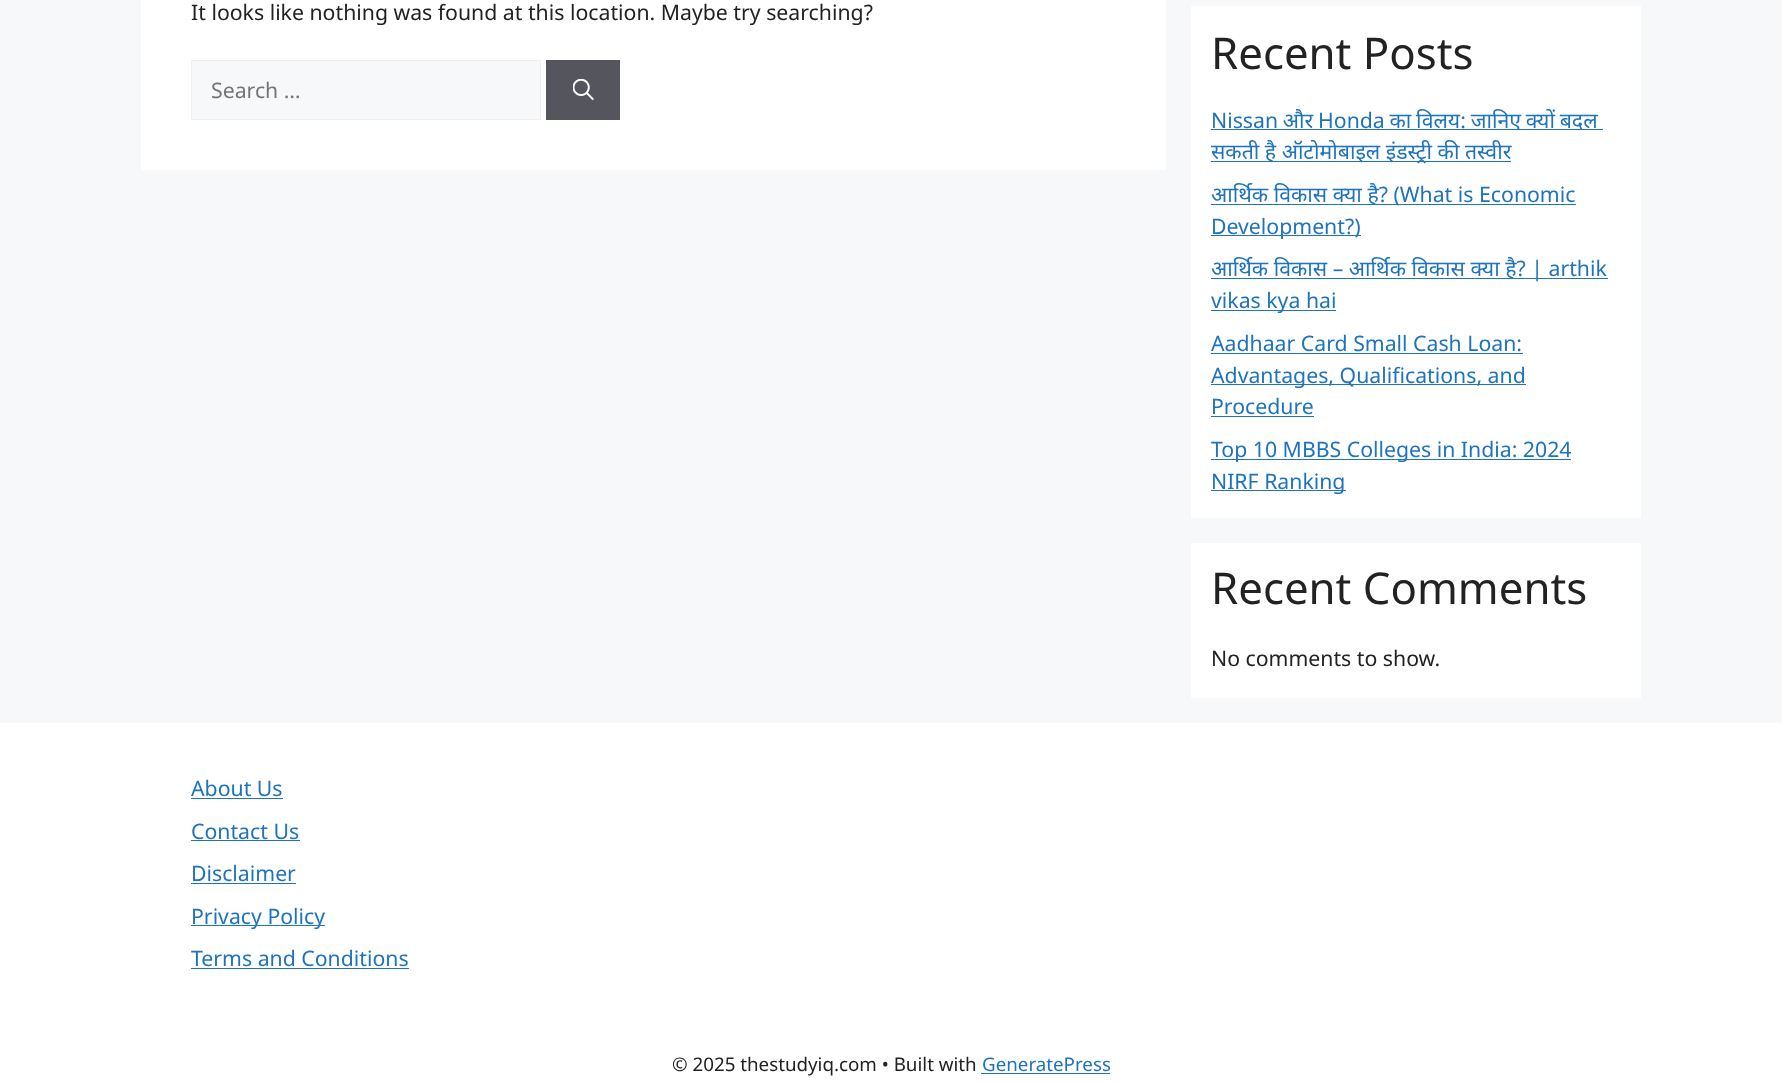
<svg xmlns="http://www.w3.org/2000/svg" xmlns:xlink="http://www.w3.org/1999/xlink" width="1782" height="1083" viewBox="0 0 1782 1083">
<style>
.cls-1{font:21.25px Noto Sans;fill:#222222}
.cls-2{font:21.25px Noto Sans;fill:#757575}
.cls-3{font:43.75px Noto Sans;fill:#222222}
.cls-4{font:21.25px Noto Sans;fill:#1e73be}
.cls-5{font:18.75px Noto Sans;fill:#222222}
.cls-6{font:18.75px Noto Sans;fill:#1e73be}
</style>
<rect width="100%" height="100%" fill="#f7f8f9"/>
<rect fill="#ffffff" x="141" y="0" width="1025" height="170"/>
<rect fill="#f7f8f9" stroke="#f0f0f0" x="191.5" y="60.5" width="349" height="59"/>
<rect fill="#55555e" x="546" y="60" width="74" height="60"/>
<image xlink:href="image0.png" x="573" y="79" width="21" height="21"/>
<rect fill="#ffffff" x="1191" y="6" width="450" height="512"/>
<rect fill="#1e73be" x="1211" y="129" width="392" height="1"/>
<rect fill="#1e73be" x="1211" y="161" width="300" height="1"/>
<rect fill="#1e73be" x="1211" y="204" width="365" height="1"/>
<rect fill="#1e73be" x="1211" y="235" width="150" height="1"/>
<rect fill="#1e73be" x="1211" y="278" width="397" height="1"/>
<rect fill="#1e73be" x="1211" y="310" width="125" height="1"/>
<rect fill="#1e73be" x="1211" y="353" width="312" height="1"/>
<rect fill="#1e73be" x="1211" y="384" width="315" height="1"/>
<rect fill="#1e73be" x="1211" y="416" width="103" height="1"/>
<rect fill="#1e73be" x="1211" y="459" width="360" height="1"/>
<rect fill="#1e73be" x="1211" y="490" width="135" height="1"/>
<rect fill="#ffffff" x="1191" y="543" width="450" height="155"/>
<rect fill="#ffffff" x="0" y="723" width="1782" height="360"/>
<rect fill="#1e73be" x="191" y="798" width="92" height="1"/>
<rect fill="#1e73be" x="191" y="840" width="109" height="1"/>
<rect fill="#1e73be" x="191" y="883" width="105" height="1"/>
<rect fill="#1e73be" x="191" y="925" width="134" height="1"/>
<rect fill="#1e73be" x="191" y="968" width="218" height="1"/>
<rect fill="#1e73be" x="981" y="1073" width="129" height="1"/>
<text class="cls-1" x="191" y="20">It looks like nothing was found at this location. Maybe try searching?</text>
<text class="cls-2" x="211" y="98">Search …</text>
<text class="cls-3" x="1211" y="69">Recent Posts</text>
<text class="cls-4"><tspan x="1211" y="128" word-spacing="-0.75">Nissan और Honda का विलय: जानिए क्यों बदल</tspan><tspan x="1211" y="159">सकती है ऑटोमोबाइल इंडस्ट्री की तस्वीर</tspan></text>
<text class="cls-4"><tspan x="1211" y="202">आर्थिक विकास क्या है? (What is Economic</tspan><tspan x="1211" y="234">Development?)</tspan><tspan x="1211" y="276">आर्थिक विकास – आर्थिक विकास क्या है? | arthik</tspan><tspan x="1211" y="308">vikas kya hai</tspan></text>
<text class="cls-4"><tspan x="1211" y="351">Aadhaar Card Small Cash Loan:</tspan><tspan x="1211" y="383">Advantages, Qualifications, and</tspan><tspan x="1211" y="414">Procedure</tspan></text>
<text class="cls-4"><tspan x="1211" y="457">Top 10 MBBS Colleges in India: 2024</tspan><tspan x="1211" y="489">NIRF Ranking</tspan></text>
<text class="cls-3" x="1211" y="604">Recent Comments</text>
<text class="cls-1" x="1211" y="666">No comments to show.</text>
<text class="cls-4" x="191" y="796">About Us</text>
<text class="cls-4"><tspan x="191" y="839">Contact Us</tspan><tspan x="191" y="881">Disclaimer</tspan></text>
<text class="cls-4"><tspan x="191" y="924">Privacy Policy</tspan><tspan x="191" y="966">Terms and Conditions</tspan></text>
<text class="cls-5" x="672" y="1071">© 2025 thestudyiq.com • Built with</text>
<text class="cls-6" x="982" y="1071">GeneratePress</text>
</svg>
